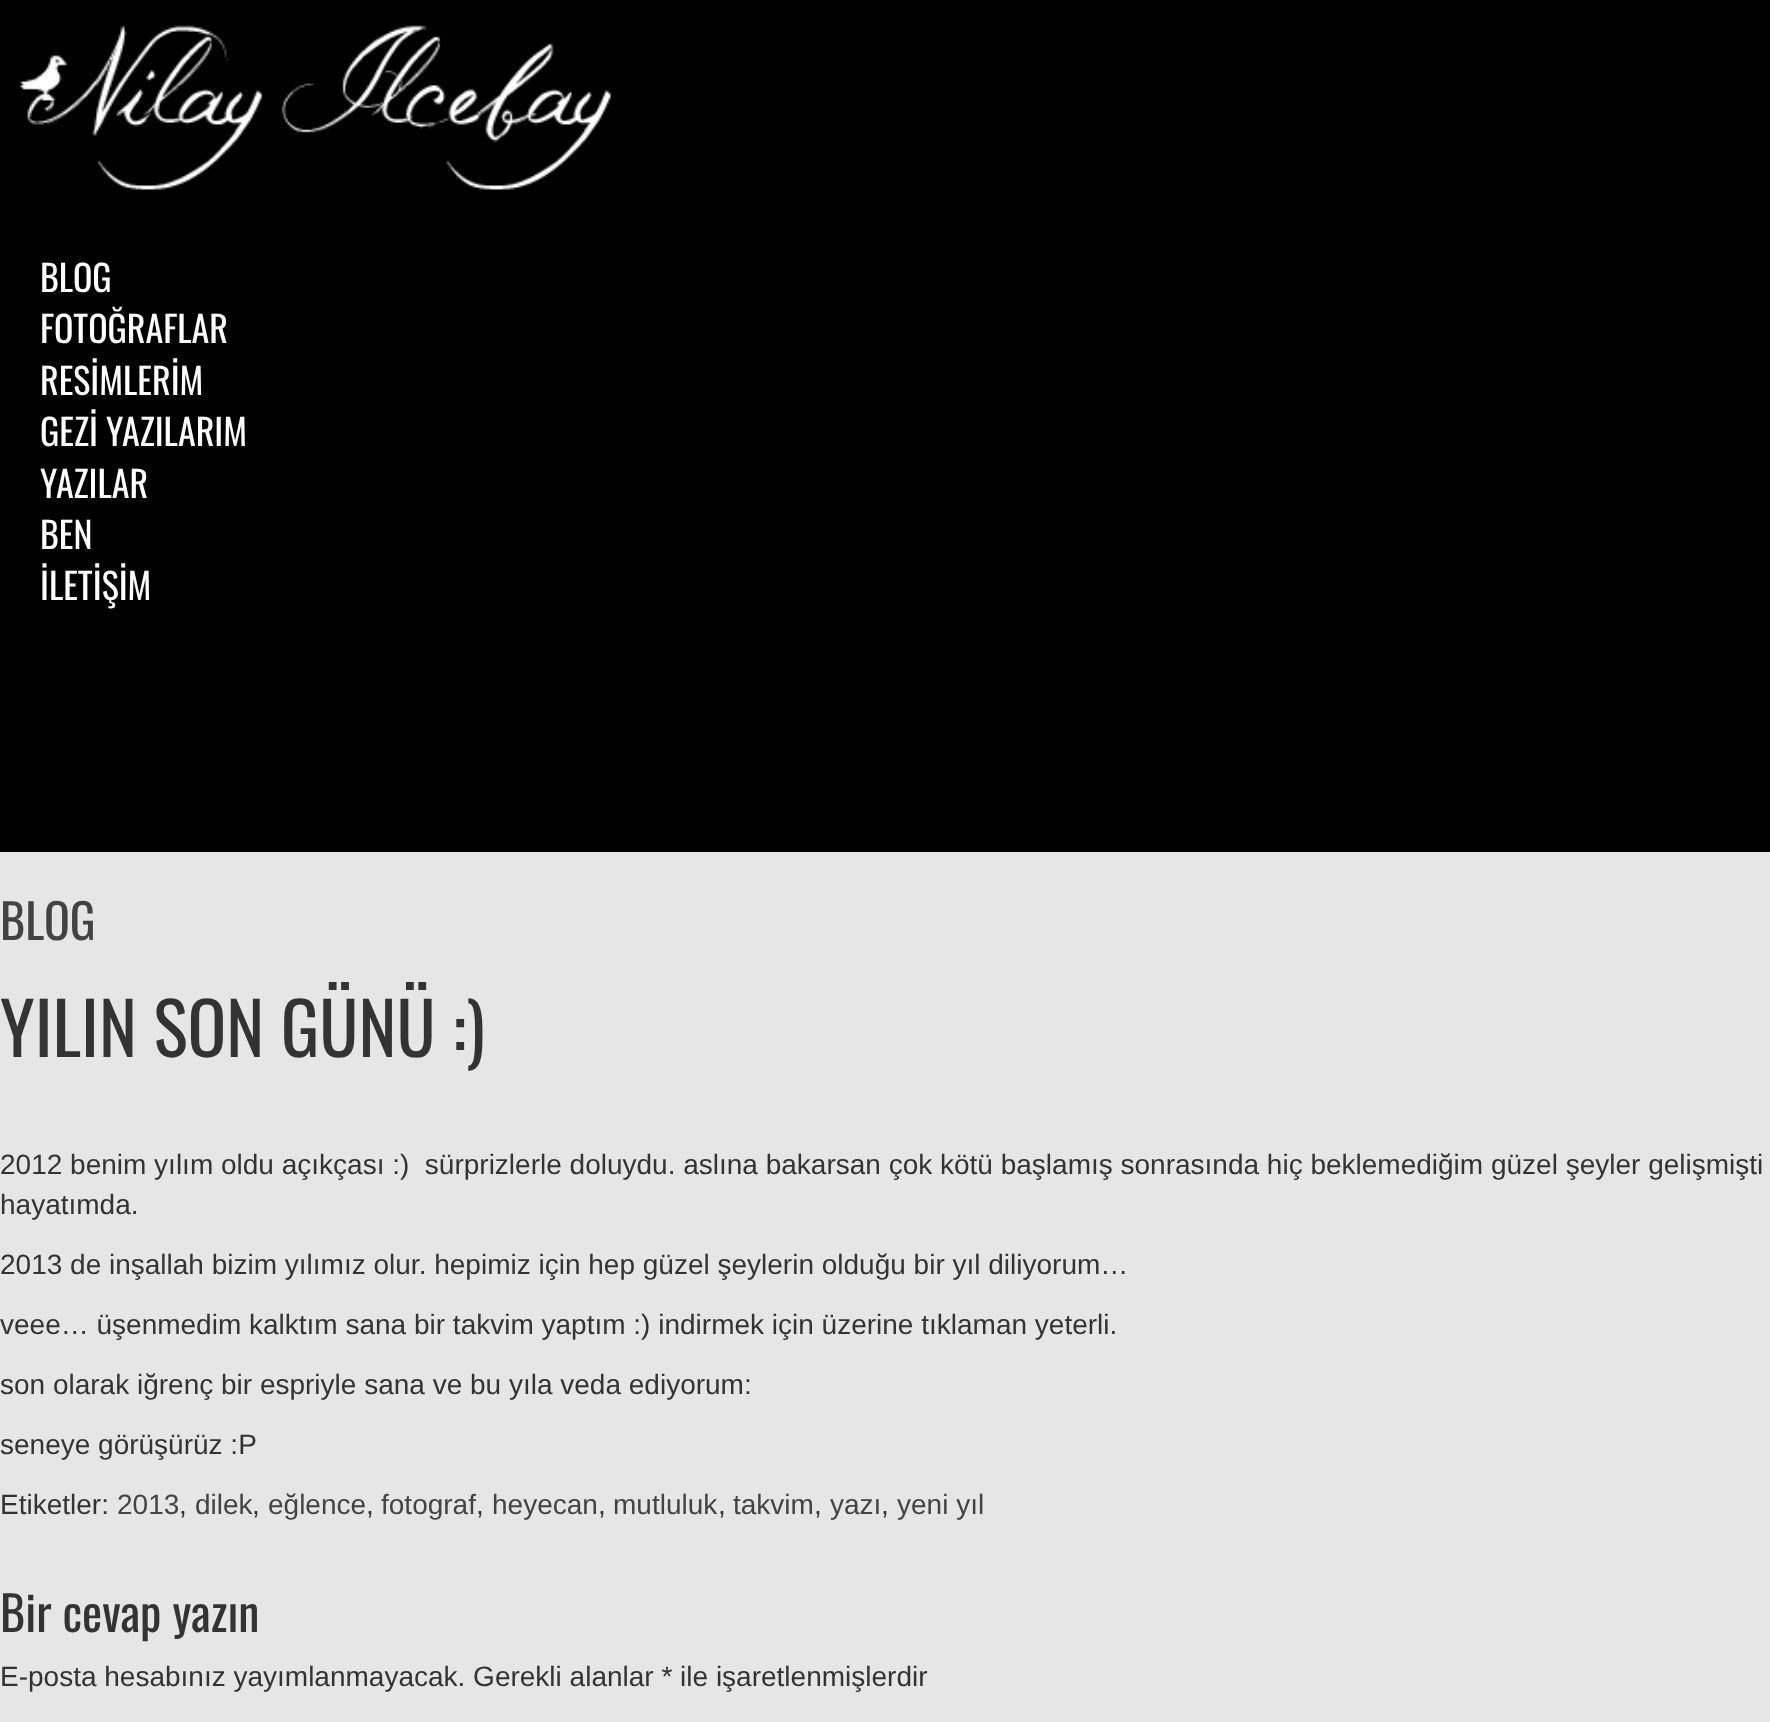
<svg xmlns="http://www.w3.org/2000/svg" xmlns:xlink="http://www.w3.org/1999/xlink" width="1770" height="1722" viewBox="0 0 1770 1722">
<style>
.cls-1{font:36px Oswald;fill:#ffffff}
.cls-2{font:48px Oswald;fill:#434343}
.cls-3{font:72px Oswald;fill:#333333}
.cls-4{font:28px Liberation Sans;fill:#333333}
.cls-5{font:28px Liberation Sans;fill:#434343}
.cls-6{font:48px Oswald;fill:#333333}
</style>
<rect width="100%" height="100%" fill="#000000"/>
<image xlink:href="image0.png" x="20" y="25" width="592" height="165"/>
<rect fill="#e6e6e6" x="0" y="852" width="1770" height="870"/>
<text class="cls-1"><tspan x="40" y="292">BLOG</tspan><tspan x="40" y="343">FOTOĞRAFLAR</tspan><tspan x="40" y="395">RESİMLERİM</tspan><tspan x="40" y="446">GEZİ YAZILARIM</tspan><tspan x="40" y="498">YAZILAR</tspan><tspan x="40" y="549">BEN</tspan><tspan x="40" y="600">İLETİŞİM</tspan></text>
<text class="cls-2" x="0" y="940">BLOG</text>
<text class="cls-3" x="0" y="1057">YILIN SON GÜNÜ :)</text>
<text class="cls-4" xml:space="preserve"><tspan x="0" y="1174">2012 benim yılım oldu açıkçası :)  sürprizlerle doluydu. aslına bakarsan çok kötü başlamış sonrasında hiç beklemediğim güzel şeyler gelişmişti</tspan><tspan x="0" y="1214">hayatımda.</tspan></text>
<text class="cls-4" x="0" y="1274">2013 de inşallah bizim yılımız olur. hepimiz için hep güzel şeylerin olduğu bir yıl diliyorum…</text>
<text class="cls-4" x="0" y="1334">veee… üşenmedim kalktım sana bir takvim yaptım :) indirmek için üzerine tıklaman yeterli.</text>
<text class="cls-4" x="0" y="1394">son olarak iğrenç bir espriyle sana ve bu yıla veda ediyorum:</text>
<text class="cls-4" x="0" y="1454">seneye görüşürüz :P</text>
<text class="cls-4" x="0" y="1514">Etiketler:</text>
<text class="cls-5" x="117" y="1514">2013</text>
<text class="cls-4" x="179" y="1514">,</text>
<text class="cls-5" x="195" y="1514">dilek</text>
<text class="cls-4" x="252" y="1514">,</text>
<text class="cls-5" x="268" y="1514">eğlence</text>
<text class="cls-4" x="366" y="1514">,</text>
<text class="cls-5" x="381" y="1514">fotograf</text>
<text class="cls-4" x="476" y="1514">,</text>
<text class="cls-5" x="492" y="1514">heyecan</text>
<text class="cls-4" x="598" y="1514">,</text>
<text class="cls-5" x="613" y="1514">mutluluk</text>
<text class="cls-4" x="718" y="1514">,</text>
<text class="cls-5" x="733" y="1514">takvim</text>
<text class="cls-4" x="814" y="1514">,</text>
<text class="cls-5" x="830" y="1514">yazı</text>
<text class="cls-4" x="881" y="1514">,</text>
<text class="cls-5" x="897" y="1514">yeni yıl</text>
<text class="cls-6" x="0" y="1632">Bir cevap yazın</text>
<text class="cls-4" x="0" y="1686">E-posta hesabınız yayımlanmayacak. Gerekli alanlar * ile işaretlenmişlerdir</text>
</svg>
